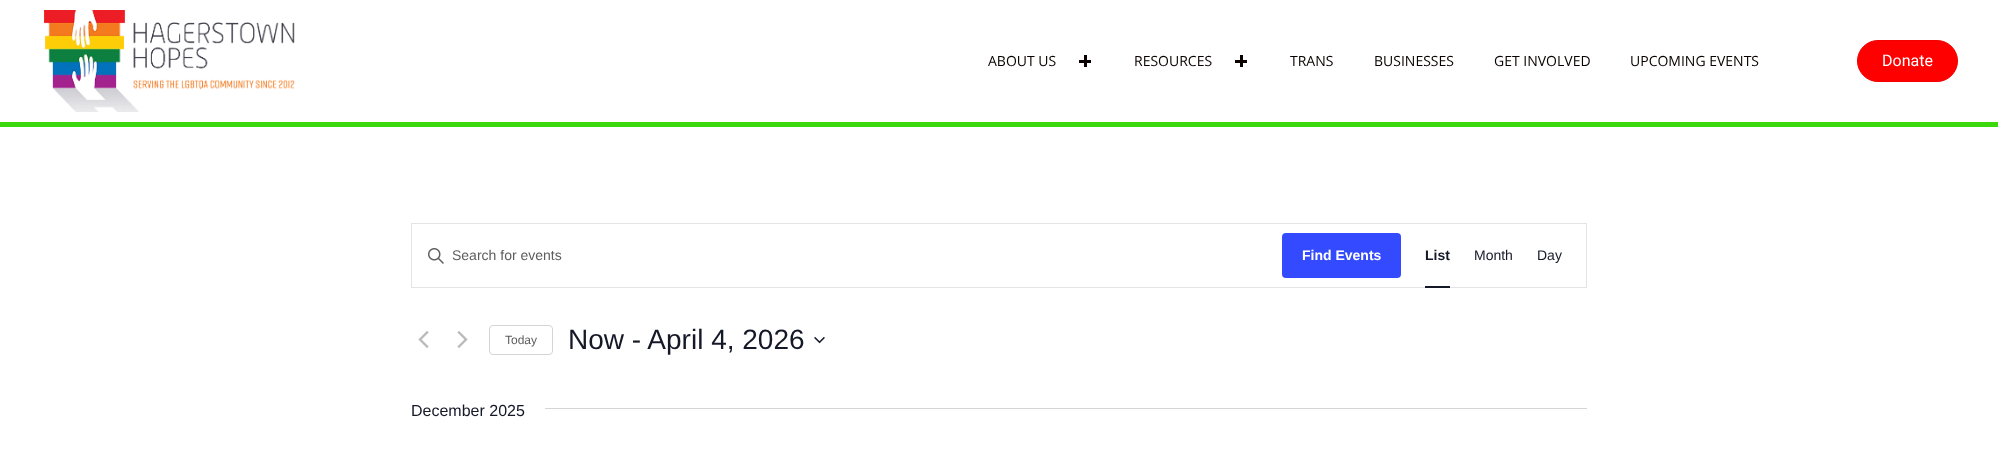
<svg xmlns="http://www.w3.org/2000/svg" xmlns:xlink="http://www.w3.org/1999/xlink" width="1998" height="451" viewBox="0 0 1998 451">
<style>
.cls-1{font:14px Open Sans;fill:#0a0000}
.cls-2{font:16px Roboto;fill:#ffffff}
.cls-3{font:14px Liberation Sans;fill:#5d5d5d}
.cls-4{font:bold 14px Liberation Sans;fill:#ffffff}
.cls-5{font:bold 14px Liberation Sans;fill:#141827}
.cls-6{font:14px Liberation Sans;fill:#141827}
.cls-7{font:12px Liberation Sans;fill:#5d5d5d}
.cls-8{font:28px Liberation Sans;fill:#141827}
.cls-9{font:16px Liberation Sans;fill:#141827}
</style>
<rect width="100%" height="100%" fill="#ffffff"/>
<image xlink:href="image0.png" x="44" y="10" width="251" height="102"/>
<rect fill="#0a0000" x="1079" y="60" width="12" height="3"/>
<rect fill="#0a0000" x="1084" y="55" width="3" height="12"/>
<rect fill="#0a0000" x="1235" y="60" width="12" height="3"/>
<rect fill="#0a0000" x="1240" y="55" width="3" height="12"/>
<rect fill="#ff0000" stroke="#f30000" x="1857.5" y="40.5" width="100" height="41" rx="20.5"/>
<rect fill="#3bd80d" x="0" y="122" width="1998" height="5"/>
<rect fill="none" stroke="#e4e4e4" x="411.5" y="223.5" width="1175" height="64"/>
<image xlink:href="image1.png" x="428" y="248" width="16" height="16"/>
<rect fill="#334aff" x="1282" y="233" width="119" height="45" rx="4"/>
<rect fill="#141827" x="1425" y="286" width="25" height="2"/>
<image xlink:href="image2.png" x="418" y="331" width="11" height="17"/>
<image xlink:href="image3.png" x="457" y="331" width="11" height="17"/>
<rect fill="none" stroke="#d5d5d5" x="489.5" y="325.5" width="63" height="29" rx="3.5"/>
<image xlink:href="image4.png" x="814" y="336" width="11" height="8"/>
<rect fill="#d5d5d5" x="545" y="408" width="1042" height="1"/>
<text class="cls-1" x="988" y="66">ABOUT US</text>
<text class="cls-1" x="1134" y="66">RESOURCES</text>
<text class="cls-1" x="1290" y="66">TRANS</text>
<text class="cls-1" x="1374" y="66">BUSINESSES</text>
<text class="cls-1" x="1494" y="66">GET INVOLVED</text>
<text class="cls-1" x="1630" y="66">UPCOMING EVENTS</text>
<text class="cls-2" x="1882" y="66">Donate</text>
<text class="cls-3" x="452" y="260">Search for events</text>
<text class="cls-4" x="1302" y="260">Find Events</text>
<text class="cls-5" x="1425" y="260">List</text>
<text class="cls-6" x="1474" y="260">Month</text>
<text class="cls-6" x="1537" y="260">Day</text>
<text class="cls-7" x="505" y="344">Today</text>
<text class="cls-8" x="568" y="349">Now - April 4, 2026</text>
<text class="cls-9" x="411" y="416">December 2025</text>
</svg>
